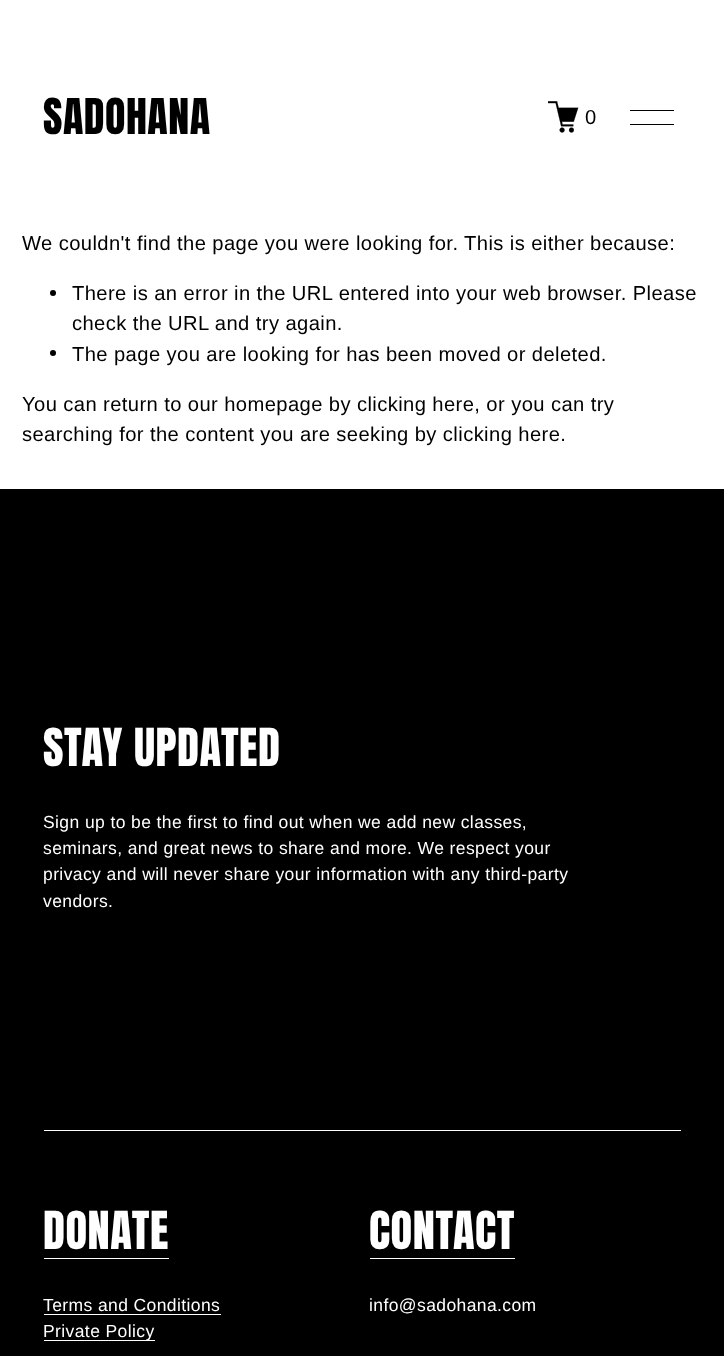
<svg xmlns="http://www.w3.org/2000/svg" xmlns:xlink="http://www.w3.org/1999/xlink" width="724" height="1356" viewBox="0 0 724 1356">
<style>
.cls-1{font:42px Anton;letter-spacing:0.5px;fill:#000000}
.cls-2{font:20.2px Liberation Sans;letter-spacing:0.4px;fill:#000000}
.cls-3{font:44.5px Anton;letter-spacing:0.5px;fill:#ffffff}
.cls-4{font:17.5px Liberation Sans;letter-spacing:0.4px;fill:#ffffff}
</style>
<rect width="100%" height="100%" fill="#ffffff"/>
<image xlink:href="image0.png" x="548" y="101" width="31" height="32"/>
<rect fill="#000000" x="630" y="110" width="44" height="1"/>
<rect fill="#000000" x="630" y="124" width="44" height="1"/>
<circle fill="#000000" cx="53" cy="293" r="3"/>
<circle fill="#000000" cx="53" cy="353" r="3"/>
<rect fill="#000000" x="0" y="489" width="724" height="867"/>
<rect fill="#ffffff" x="44" y="1130" width="637" height="1"/>
<rect fill="#ffffff" x="44" y="1258" width="125" height="1"/>
<rect fill="#ffffff" x="44" y="1314" width="177" height="1"/>
<rect fill="#ffffff" x="44" y="1340" width="111" height="1"/>
<rect fill="#ffffff" x="370" y="1258" width="145" height="1"/>
<text class="cls-1" x="43" y="134">SADOHANA</text>
<text class="cls-2" x="585" y="124">0</text>
<text class="cls-2" x="22" y="250">We couldn't find the page you were looking for. This is either because:</text>
<text class="cls-2"><tspan x="72" y="300">There is an error in the URL entered into your web browser. Please</tspan><tspan x="72" y="330">check the URL and try again.</tspan><tspan x="72" y="361">The page you are looking for has been moved or deleted.</tspan></text>
<text class="cls-2"><tspan x="22" y="411">You can return to our homepage by clicking here, or you can try</tspan><tspan x="22" y="441">searching for the content you are seeking by clicking here.</tspan></text>
<text class="cls-3" x="43" y="766">STAY UPDATED</text>
<text class="cls-4"><tspan x="43" y="828">Sign up to be the first to find out when we add new classes,</tspan><tspan x="43" y="854">seminars, and great news to share and more. We respect your</tspan><tspan x="43" y="880">privacy and will never share your information with any third-party</tspan><tspan x="43" y="907">vendors.</tspan></text>
<text class="cls-3" x="43" y="1249">DONATE</text>
<text class="cls-4"><tspan x="43" y="1311">Terms and Conditions</tspan><tspan x="43" y="1337">Private Policy</tspan></text>
<text class="cls-3" x="369" y="1249">CONTACT</text>
<text class="cls-4" x="369" y="1311">info@sadohana.com</text>
</svg>
